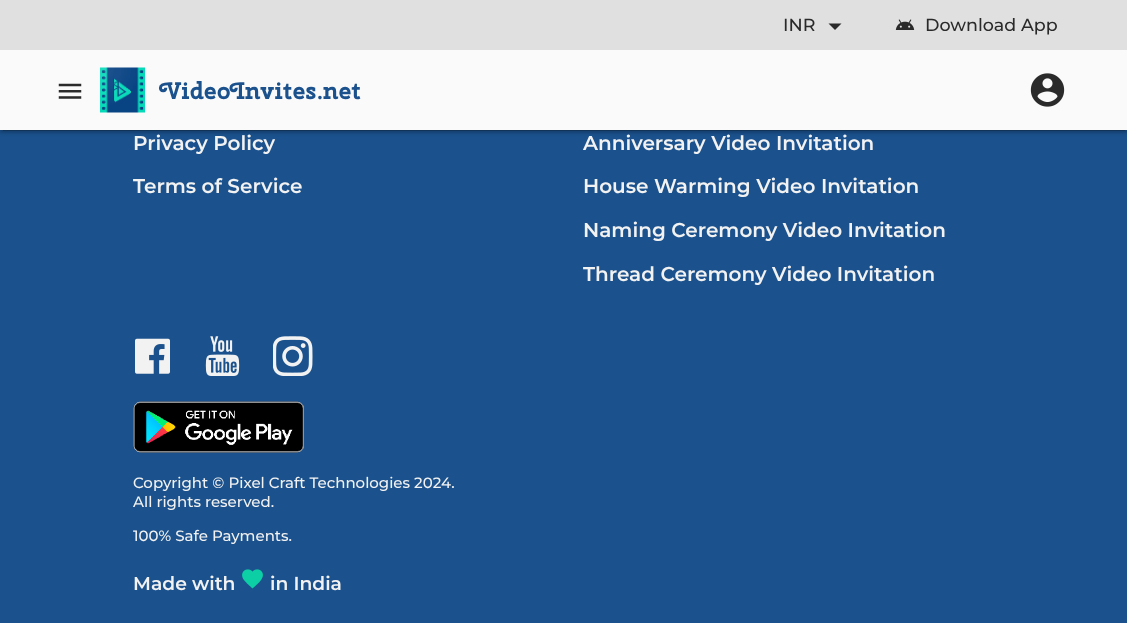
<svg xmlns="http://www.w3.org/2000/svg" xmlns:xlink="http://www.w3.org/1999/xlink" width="1127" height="623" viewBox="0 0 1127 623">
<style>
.cls-1{font:500 17.5px Montserrat;fill:#2a2a2a}
.cls-2{font:bold 24px Cherry Swash;fill:#1b518c}
.cls-3{font:600 20px Montserrat;fill:#f2f2f2}
.cls-4{font:500 15px Montserrat;fill:#f2f2f2}
.cls-5{font:600 18.75px Montserrat;fill:#f2f2f2}
</style>
<rect width="100%" height="100%" fill="#1b518c"/>
<rect fill="#000000" fill-opacity="0.12" filter="blur(3px)" x="0" y="1" width="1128" height="130"/>
<rect fill="#000000" fill-opacity="0.14" filter="blur(1px)" x="0" y="3" width="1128" height="130"/>
<rect fill="#000000" fill-opacity="0.2" filter="blur(0.5px)" x="3" y="6" width="1122" height="125"/>
<rect fill="#e0e0e0" x="0" y="0" width="1127" height="50"/>
<path fill="#2a2a2a" d="M828.5 23.5H841.5L835 30Z"/>
<image xlink:href="image0.png" x="895" y="19" width="20" height="11"/>
<rect fill="#fafafa" x="0" y="50" width="1127" height="80"/>
<image xlink:href="image1.png" x="58" y="83" width="24" height="16"/>
<image xlink:href="image2.png" x="100" y="67" width="45" height="46"/>
<image xlink:href="image3.png" x="1030" y="73" width="35" height="34"/>
<image xlink:href="image4.png" x="135" y="338" width="35" height="36"/>
<image xlink:href="image5.png" x="205" y="336" width="35" height="40"/>
<image xlink:href="image6.png" x="273" y="336" width="40" height="40"/>
<image xlink:href="image7.png" x="133" y="401" width="171" height="52"/>
<image xlink:href="image8.png" x="242" y="569" width="21" height="20"/>
<text class="cls-1" x="783" y="31">INR</text>
<text class="cls-1" x="925" y="31">Download App</text>
<text class="cls-2" x="160" y="99">VideoInvites.net</text>
<text class="cls-3" x="133" y="150">Privacy Policy</text>
<text class="cls-3" x="133" y="193">Terms of Service</text>
<text class="cls-3" x="583" y="150">Anniversary Video Invitation</text>
<text class="cls-3" x="583" y="193">House Warming Video Invitation</text>
<text class="cls-3" x="583" y="237">Naming Ceremony Video Invitation</text>
<text class="cls-3" x="583" y="281">Thread Ceremony Video Invitation</text>
<text class="cls-4"><tspan x="133" y="488">Copyright © Pixel Craft Technologies 2024.</tspan><tspan x="133" y="507">All rights reserved.</tspan></text>
<text class="cls-4" x="133" y="541">100% Safe Payments.</text>
<text class="cls-5" x="133" y="590">Made with</text>
<text class="cls-5" x="270" y="590">in India</text>
</svg>
